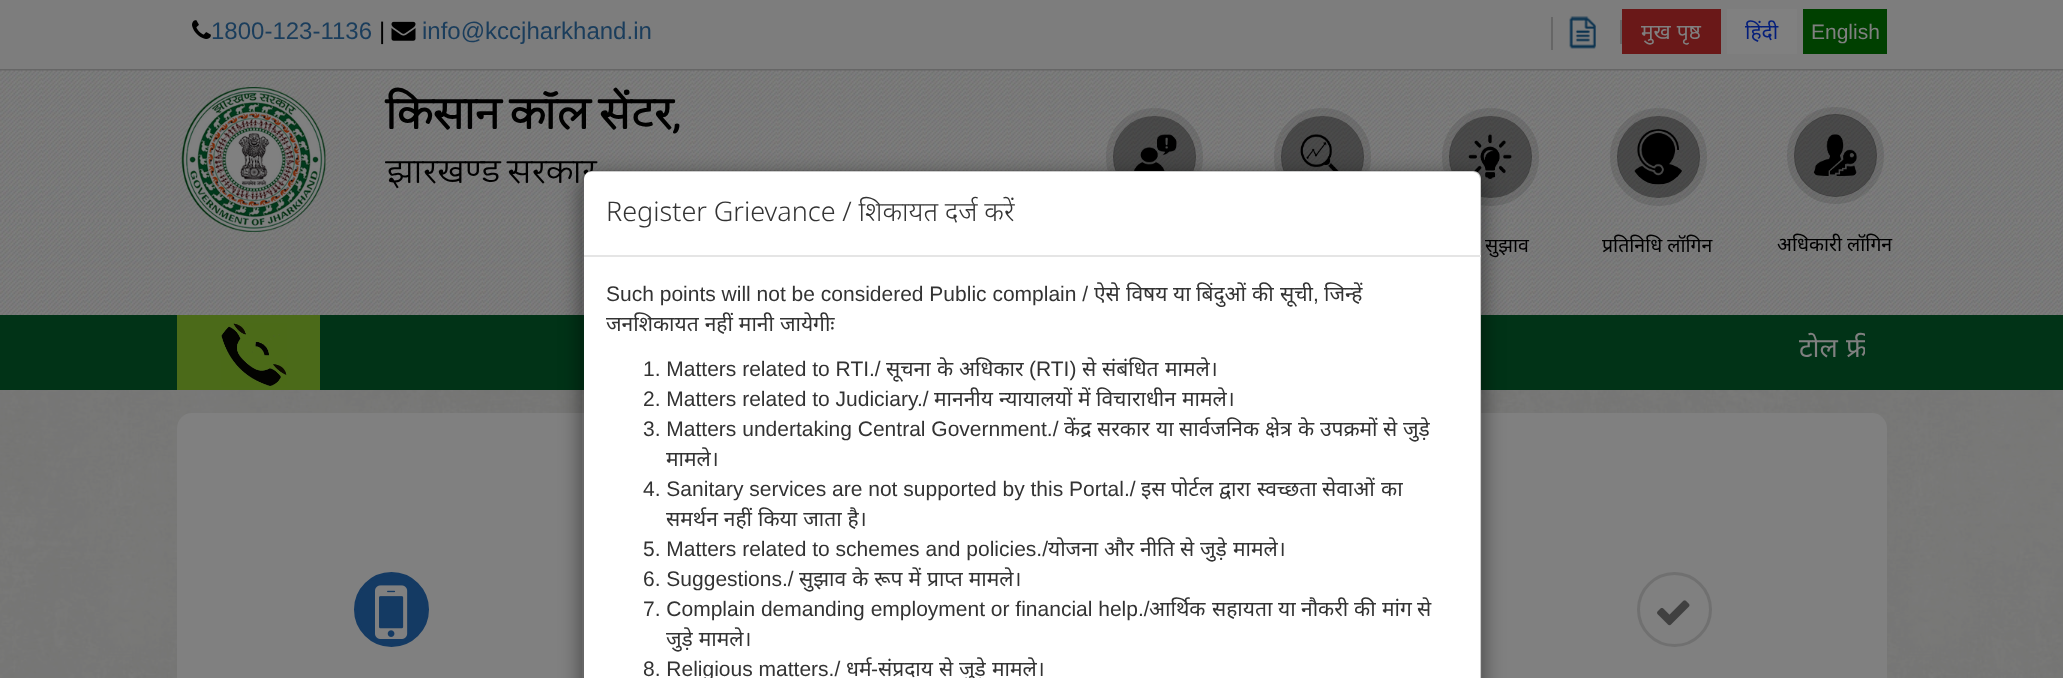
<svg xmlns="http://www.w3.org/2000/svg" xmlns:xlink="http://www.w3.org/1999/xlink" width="2063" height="678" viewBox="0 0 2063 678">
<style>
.cls-1{font:24px Liberation Sans;fill:#1a3d5c}
.cls-2{font:24px Liberation Sans;fill:#000000}
.cls-3{font:21px Noto Sans;fill:#808080}
.cls-4{font:21px Noto Sans;fill:#041e7b}
.cls-5{font:21px Liberation Sans;fill:#808080}
.cls-6{font:bold 45px Jaldi;fill:#000000}
.cls-7{font:34.5px Jaldi;fill:#000000}
.cls-8{font:19.5px Noto Sans;fill:#000000}
.cls-9{font:300 27px Noto Sans;fill:#333333}
.cls-10{font:21px Liberation Sans;fill:#333333}
.cls-11{font:21px Noto Sans;fill:#333333}
.cls-12{font:27px Noto Sans;fill:#808080}
</style>
<defs>
<clipPath id="clip1"><path d="M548 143H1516V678H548ZM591 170H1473C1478 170 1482 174 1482 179V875C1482 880 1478 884 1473 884H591C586 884 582 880 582 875V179C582 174 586 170 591 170Z" clip-rule="evenodd"/></clipPath>
<clipPath id="clip2"><rect x="327" y="330" width="1538" height="39"/></clipPath>
</defs>
<rect width="100%" height="100%" fill="#ffffff"/>
<image xlink:href="image0.png" x="0" y="390" width="2063" height="288"/>
<rect fill="#7d7d7d" x="0" y="0" width="2063" height="69"/>
<rect fill="#666666" x="0" y="69" width="2063" height="2"/>
<image xlink:href="image1.png" x="192" y="20" width="19" height="19"/>
<image xlink:href="image2.png" x="391" y="21" width="25" height="20"/>
<rect fill="#666666" x="1551" y="17" width="2" height="33"/>
<image xlink:href="image3.png" x="1569" y="16" width="27" height="33"/>
<rect fill="#666666" x="1620" y="20" width="2" height="24"/>
<rect fill="#6a1818" x="1622" y="9" width="99" height="45"/>
<rect fill="#808080" x="1727" y="9" width="70" height="45"/>
<rect fill="#004000" x="1803" y="9" width="84" height="45"/>
<image xlink:href="image4.png" x="0" y="70" width="2063" height="245"/>
<image xlink:href="image5.png" x="181" y="87" width="145" height="145"/>
<rect fill="none" stroke="#000000" stroke-opacity="0.1" stroke-width="8" x="1110" y="112" width="89" height="90" rx="44.5"/>
<rect fill="#000000" fill-opacity="0.4" x="1113" y="116" width="83" height="82" rx="41"/>
<image xlink:href="image6.png" x="1133" y="134" width="44" height="37"/>
<rect fill="none" stroke="#000000" stroke-opacity="0.1" stroke-width="8" x="1278" y="112" width="89" height="90" rx="44.5"/>
<rect fill="#000000" fill-opacity="0.4" x="1281" y="116" width="83" height="82" rx="41"/>
<image xlink:href="image7.png" x="1300" y="134" width="39" height="37"/>
<rect fill="none" stroke="#000000" stroke-opacity="0.1" stroke-width="8" x="1446" y="112" width="89" height="90" rx="44.5"/>
<rect fill="#000000" fill-opacity="0.4" x="1449" y="116" width="83" height="82" rx="41"/>
<image xlink:href="image8.png" x="1468" y="134" width="44" height="45"/>
<rect fill="none" stroke="#000000" stroke-opacity="0.1" stroke-width="8" x="1614" y="112" width="89" height="90" rx="44.5"/>
<rect fill="#000000" fill-opacity="0.4" x="1617" y="116" width="83" height="82" rx="41"/>
<image xlink:href="image9.png" x="1634" y="129" width="48" height="56"/>
<circle fill="none" stroke="#000000" stroke-opacity="0.1" stroke-width="8" cx="1835.5" cy="155.5" r="44.5"/>
<circle fill="#000000" fill-opacity="0.4" cx="1835.5" cy="155.5" r="41.5"/>
<image xlink:href="image10.png" x="1813" y="134" width="44" height="42"/>
<rect fill="#013317" x="0" y="315" width="2063" height="75"/>
<rect fill="#808080" x="177" y="413" width="1710" height="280" rx="15"/>
<g clip-path="url(#clip1)">
<rect fill="#000000" fill-opacity="0.5" filter="blur(11px)" x="582" y="177" width="900" height="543" rx="9"/>
</g>
<rect fill="#4b6a19" x="177" y="315" width="143" height="75"/>
<image xlink:href="image11.png" x="221" y="323" width="66" height="64"/>
<circle fill="#143a63" stroke="#143a63" stroke-width="3" cx="391.5" cy="609.5" r="36"/>
<image xlink:href="image12.png" x="375" y="585" width="33" height="54"/>
<circle fill="none" stroke="#707070" stroke-width="3" cx="1674.5" cy="609.5" r="36"/>
<image xlink:href="image13.png" x="1657" y="600" width="33" height="26"/>
<text class="cls-1" x="211" y="39">1800-123-1136</text>
<text class="cls-2" x="379" y="39">|</text>
<text class="cls-1" x="422" y="39">info@kccjharkhand.in</text>
<text class="cls-3" x="1641" y="39" word-spacing="0.5">मुख पृष्ठ</text>
<text class="cls-4" x="1745" y="39">हिंदी</text>
<text class="cls-5" x="1811" y="39">English</text>
<text class="cls-6" x="386" y="129">किसान कॉल सेंटर,</text>
<text class="cls-7" x="386" y="183">झारखण्ड सरकार</text>
<text class="cls-8" x="1480" y="252">े सुझाव</text>
<text class="cls-8" x="1602" y="252">प्रतिनिधि लॉगिन</text>
<text class="cls-8" x="1777" y="251">अधिकारी लॉगिन</text>
<path fill="#ffffff" d="M592 171H1473C1477.5 171 1481 174.5 1481 179V678H584V179C584 174.5 587.5 171 592 171Z"/>
<rect fill="none" stroke="#000000" stroke-opacity="0.2" stroke-width="2" x="583" y="171" width="898" height="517" rx="8"/>
<rect fill="#e5e5e5" x="584" y="255" width="897" height="2"/>
<text class="cls-9" x="606" y="221" word-spacing="-0.25">Register Grievance / शिकायत दर्ज करें</text>
<text class="cls-10" x="606" y="301">Such points will not be considered Public complain /</text>
<text class="cls-11" x="1094" y="301">ऐसे</text>
<text class="cls-11" x="1126" y="301">विषय</text>
<text class="cls-11" x="1173" y="301">या</text>
<text class="cls-11" x="1196" y="301">बिंदुओं</text>
<text class="cls-11" x="1252" y="301">की</text>
<text class="cls-11" x="1280" y="301">सूची</text>
<text class="cls-10" x="1313" y="301">,</text>
<text class="cls-11" x="1324" y="301">जिन्हें</text>
<text class="cls-11" x="606" y="331" word-spacing="0.5">जनशिकायत नहीं मानी जायेगीः</text>
<text class="cls-10" x="643" y="376">1. Matters related to RTI./</text>
<text class="cls-11" x="886" y="376">सूचना</text>
<text class="cls-11" x="937" y="376">के</text>
<text class="cls-11" x="959" y="376">अधिकार</text>
<text class="cls-10" x="1029" y="376">(RTI)</text>
<text class="cls-11" x="1082" y="376">से</text>
<text class="cls-11" x="1102" y="376">संबंधित</text>
<text class="cls-11" x="1165" y="376">मामले।</text>
<text class="cls-10" x="643" y="406">2. Matters related to Judiciary./</text>
<text class="cls-11" x="934" y="406">माननीय</text>
<text class="cls-11" x="999" y="406">न्यायालयों</text>
<text class="cls-11" x="1078" y="406">में</text>
<text class="cls-11" x="1096" y="406">विचाराधीन</text>
<text class="cls-11" x="1182" y="406">मामले।</text>
<text class="cls-10" x="643" y="436">3. Matters undertaking Central Government./</text>
<text class="cls-11" x="1064" y="436">केंद्र</text>
<text class="cls-11" x="1097" y="436">सरकार</text>
<text class="cls-11" x="1156" y="436">या</text>
<text class="cls-11" x="1179" y="436">सार्वजनिक</text>
<text class="cls-11" x="1265" y="436">क्षेत्र</text>
<text class="cls-11" x="1298" y="436">के</text>
<text class="cls-11" x="1320" y="436">उपक्रमों</text>
<text class="cls-11" x="1383" y="436">से</text>
<text class="cls-11" x="1403" y="436">जुड़े</text>
<text class="cls-11" x="666" y="466">मामले।</text>
<text class="cls-10" x="643" y="496">4. Sanitary services are not supported by this Portal./</text>
<text class="cls-11" x="1141" y="496">इस</text>
<text class="cls-11" x="1171" y="496">पोर्टल</text>
<text class="cls-11" x="1219" y="496">द्वारा</text>
<text class="cls-11" x="1257" y="496">स्वच्छता</text>
<text class="cls-11" x="1322" y="496">सेवाओं</text>
<text class="cls-11" x="1381" y="496">का</text>
<text class="cls-11" x="666" y="526" word-spacing="0.5">समर्थन नहीं किया जाता है।</text>
<text class="cls-10" x="643" y="556">5. Matters related to schemes and policies./</text>
<text class="cls-11" x="1048" y="556">योजना</text>
<text class="cls-11" x="1104" y="556">और</text>
<text class="cls-11" x="1140" y="556">नीति</text>
<text class="cls-11" x="1180" y="556">से</text>
<text class="cls-11" x="1200" y="556">जुड़े</text>
<text class="cls-11" x="1233" y="556">मामले।</text>
<text class="cls-10" x="643" y="586">6. Suggestions./</text>
<text class="cls-11" x="799" y="586" word-spacing="0.5">सुझाव के रूप में प्राप्त मामले।</text>
<text class="cls-10" x="643" y="616">7. Complain demanding employment or financial help./</text>
<text class="cls-11" x="1149" y="616">आर्थिक</text>
<text class="cls-11" x="1212" y="616">सहायता</text>
<text class="cls-11" x="1278" y="616">या</text>
<text class="cls-11" x="1301" y="616">नौकरी</text>
<text class="cls-11" x="1354" y="616">की</text>
<text class="cls-11" x="1382" y="616">मांग</text>
<text class="cls-11" x="1417" y="616">से</text>
<text class="cls-11" x="666" y="646" word-spacing="0.5">जुड़े मामले।</text>
<text class="cls-10" x="643" y="676">8. Religious matters./</text>
<text class="cls-11" x="846" y="676">धर्म</text>
<text class="cls-11" x="992" y="676">मामले।</text>
<text class="cls-10" x="871" y="676">-</text>
<text class="cls-11" x="878" y="676">संप्रदाय</text>
<text class="cls-11" x="939" y="676">से</text>
<text class="cls-11" x="959" y="676">जुड़े</text>
<text class="cls-12" x="1799" y="357">टोल</text>
<g clip-path="url(#clip2)">
<text class="cls-12" x="1846" y="357">फ्री</text>
</g>
</svg>
